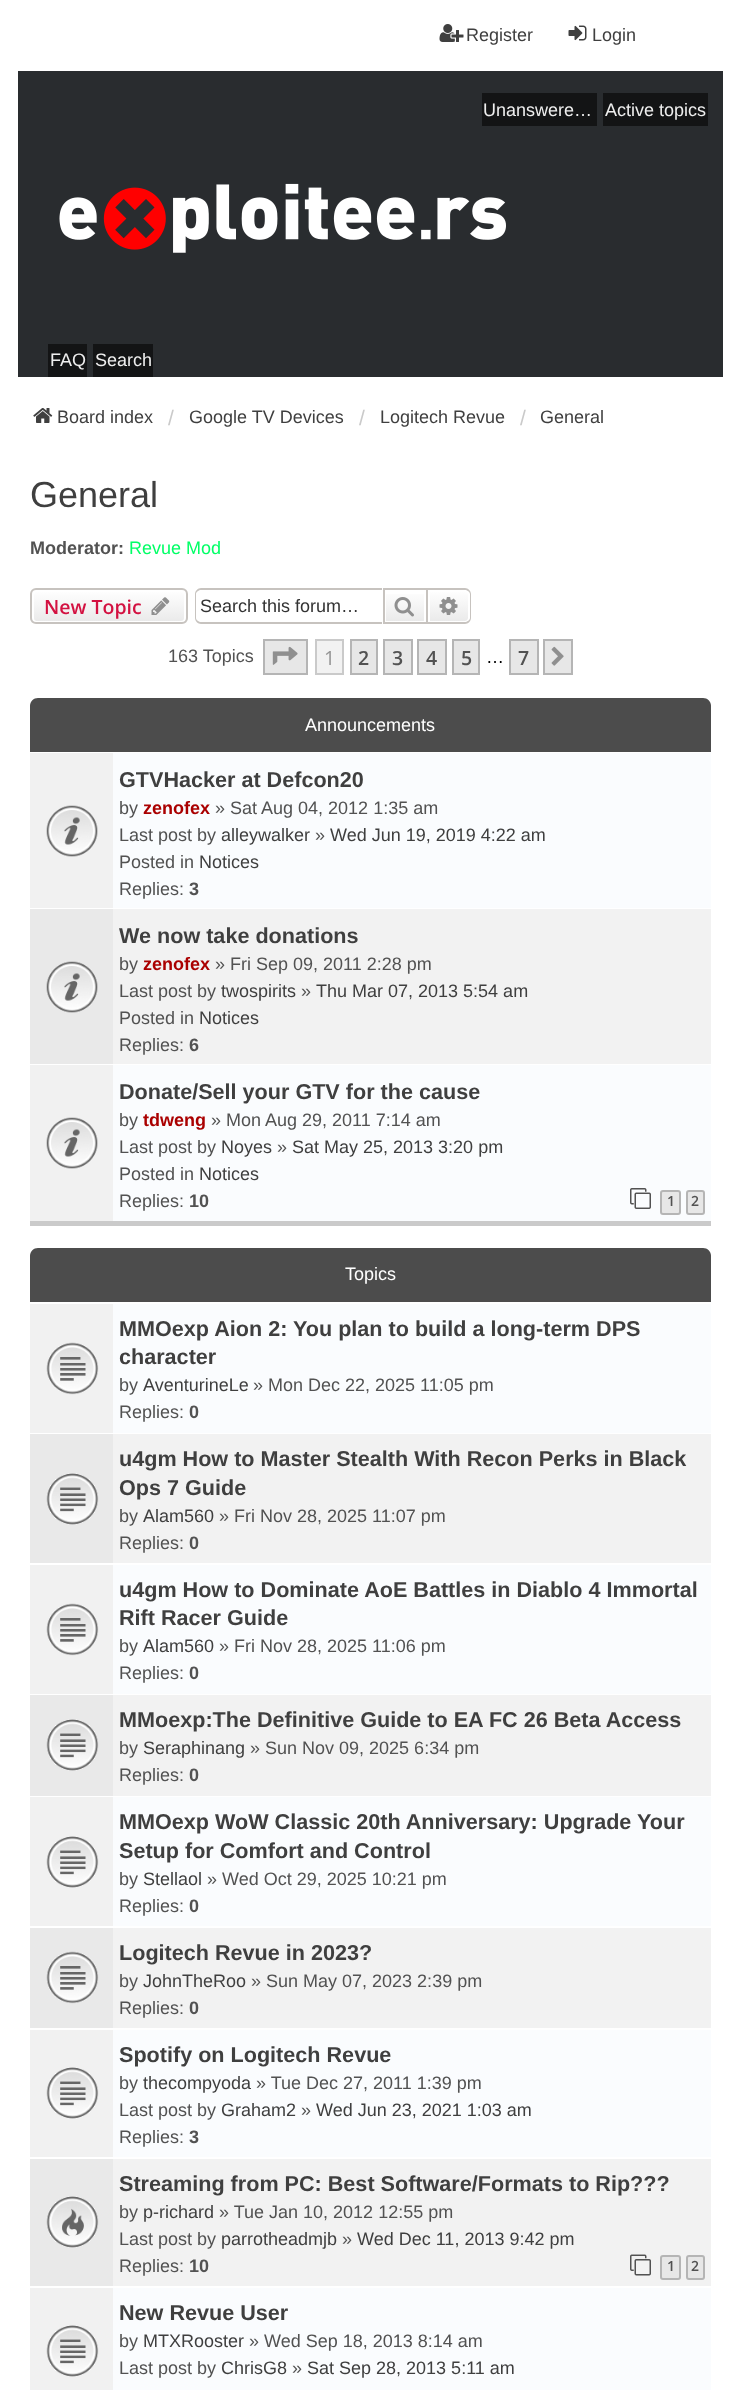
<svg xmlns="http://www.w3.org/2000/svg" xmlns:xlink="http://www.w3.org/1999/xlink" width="740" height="2390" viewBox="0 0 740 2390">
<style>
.cls-1{font:18px Liberation Sans;fill:#3f3f3f}
.cls-2{font:18px Liberation Sans;fill:#eeeeee}
.cls-3{font:21px Liberation Sans;fill:#cacaca}
.cls-4{font:36px Liberation Sans;fill:#3f3f3f}
.cls-5{font:bold 18px Liberation Sans;fill:#525252}
.cls-6{font:18px Liberation Sans;fill:#00ff66}
.cls-7{font:600 19.5px Open Sans;fill:#d31141}
.cls-8{font:18px Liberation Sans;fill:#333333}
.cls-9{font:18px Liberation Sans;fill:#525252}
.cls-10{font:19.5px Open Sans;fill:#959595}
.cls-11{font:600 19.5px Open Sans;fill:#525252}
.cls-12{font:18px Liberation Sans;fill:#000000}
.cls-13{font:18px Liberation Sans;fill:#ffffff}
.cls-14{font:bold 21.6px Liberation Sans;fill:#3f3f3f}
.cls-15{font:bold 18px Liberation Sans;fill:#aa0000}
.cls-16{font:600 14px Open Sans;fill:#525252}
</style>
<defs>
<clipPath id="clip1"><rect x="30" y="588" width="158" height="36" rx="6"/></clipPath>
<linearGradient id="g1" gradientUnits="userSpaceOnUse" x1="109" y1="590" x2="109" y2="623"><stop offset="0" stop-color="#ffffff"/><stop offset="1" stop-color="#e9e9e9"/></linearGradient>
<linearGradient id="g2" gradientUnits="userSpaceOnUse" x1="405" y1="590" x2="405" y2="623"><stop offset="0" stop-color="#ffffff"/><stop offset="1" stop-color="#e9e9e9"/></linearGradient>
<linearGradient id="g3" gradientUnits="userSpaceOnUse" x1="449" y1="590" x2="449" y2="623"><stop offset="0" stop-color="#ffffff"/><stop offset="1" stop-color="#e9e9e9"/></linearGradient>
</defs>
<rect width="100%" height="100%" fill="#ffffff"/>
<image xlink:href="image0.png" x="439" y="24" width="25" height="18"/>
<image xlink:href="image1.png" x="568" y="25" width="19" height="16"/>
<rect fill="#292c2f" x="18" y="71" width="705" height="306"/>
<rect fill="#131415" x="482" y="93" width="115" height="33"/>
<rect fill="#131415" x="603" y="93" width="105" height="33"/>
<image xlink:href="image2.png" x="59" y="183" width="447" height="70"/>
<rect fill="#131415" x="48" y="344" width="39" height="33"/>
<rect fill="#131415" x="93" y="344" width="60" height="33"/>
<image xlink:href="image3.png" x="33" y="408" width="20" height="15"/>
<g clip-path="url(#clip1)">
<rect fill="url(#g1)" x="30" y="590" width="158" height="33"/>
</g>
<rect fill="none" stroke="#ffffff" stroke-width="2" x="33" y="591" width="152" height="31" rx="4"/>
<rect fill="none" stroke="#c7c3bf" stroke-width="2" x="31" y="589" width="156" height="34" rx="5"/>
<image xlink:href="image4.png" x="151" y="597" width="19" height="18"/>
<path fill="#c7c3bf" fill-rule="evenodd" d="M201 588H382V624H201C198 624 195 621 195 618V594C195 591 198 588 201 588ZM201 590H382V622H201C199 622 196 620 196 618V594C196 592 199 590 201 590Z"/>
<rect fill="url(#g2)" x="386" y="594" width="38" height="27"/>
<rect fill="none" stroke="#c7c3bf" stroke-width="2" x="384" y="589" width="43" height="34"/>
<image xlink:href="image5.png" x="394" y="597" width="20" height="20"/>
<path fill="url(#g3)" stroke="#ffffff" stroke-width="2" d="M429 591H465C467 591 469 593 469 595V618C469 620 467 622 465 622H429Z"/>
<path fill="#c7c3bf" fill-rule="evenodd" d="M428 588H465C468 588 471 591 471 594V618C471 621 468 624 465 624H428ZM428 590H465C467 590 470 592 470 594V618C470 620 467 622 465 622H428Z"/>
<image xlink:href="image6.png" x="439" y="597" width="19" height="18"/>
<rect fill="#e7e7e7" stroke="#b5b5b5" stroke-width="2" x="264" y="640" width="43" height="34"/>
<image xlink:href="image7.png" x="272" y="646" width="26" height="19"/>
<rect fill="#f2f2f2" stroke="#cacaca" stroke-width="2" x="316" y="640" width="27" height="34"/>
<rect fill="#e7e7e7" stroke="#b5b5b5" stroke-width="2" x="351" y="640" width="26" height="34"/>
<rect fill="#e7e7e7" stroke="#b5b5b5" stroke-width="2" x="384" y="640" width="28" height="34"/>
<rect fill="#e7e7e7" stroke="#b5b5b5" stroke-width="2" x="418" y="640" width="28" height="34"/>
<rect fill="#e7e7e7" stroke="#b5b5b5" stroke-width="2" x="453" y="640" width="26" height="34"/>
<rect fill="#e7e7e7" stroke="#b5b5b5" stroke-width="2" x="510" y="640" width="28" height="34"/>
<rect fill="#e7e7e7" stroke="#b5b5b5" stroke-width="2" x="544" y="640" width="28" height="34"/>
<image xlink:href="image8.png" x="551" y="646" width="13" height="20"/>
<path fill="#4c4c4c" d="M38 698H703C707.5 698 711 701.5 711 706V1226H30V706C30 701.5 33.5 698 38 698Z"/>
<rect fill="#cacaca" x="30" y="1221" width="681" height="5"/>
<rect fill="#ffffff" x="30" y="752" width="681" height="1"/>
<rect fill="#f1f1f1" x="30" y="753" width="83" height="155"/>
<image xlink:href="image9.png" x="46" y="805" width="52" height="52"/>
<rect fill="#fafcfe" x="113" y="753" width="598" height="155"/>
<rect fill="#ffffff" x="30" y="908" width="681" height="1"/>
<rect fill="#e9e9e9" x="30" y="909" width="83" height="155"/>
<image xlink:href="image10.png" x="46" y="961" width="52" height="52"/>
<rect fill="#f2f2f2" x="113" y="909" width="598" height="155"/>
<rect fill="#ffffff" x="30" y="1064" width="681" height="1"/>
<rect fill="#f1f1f1" x="30" y="1065" width="83" height="156"/>
<image xlink:href="image9.png" x="46" y="1117" width="52" height="52"/>
<rect fill="#fafcfe" x="113" y="1065" width="598" height="156"/>
<image xlink:href="image11.png" x="630" y="1188" width="21" height="21"/>
<rect fill="#e7e7e7" stroke="#b5b5b5" stroke-width="2" x="661" y="1191" width="19" height="23" rx="2"/>
<rect fill="#e7e7e7" stroke="#b5b5b5" stroke-width="2" x="687" y="1191" width="17" height="23" rx="2"/>
<path fill="#4c4c4c" d="M38 1248H703C707.5 1248 711 1251.5 711 1256V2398H30V1256C30 1251.5 33.5 1248 38 1248Z"/>
<rect fill="#fafcfe" x="113" y="1304" width="598" height="1086"/>
<rect fill="#ffffff" x="30" y="1302" width="681" height="2"/>
<rect fill="#f1f1f1" x="30" y="1304" width="83" height="129"/>
<image xlink:href="image12.png" x="46" y="1342" width="53" height="53"/>
<rect fill="#ffffff" x="30" y="1433" width="681" height="1"/>
<rect fill="#e9e9e9" x="30" y="1434" width="83" height="129"/>
<image xlink:href="image13.png" x="46" y="1473" width="53" height="52"/>
<rect fill="#f2f2f2" x="113" y="1434" width="598" height="129"/>
<rect fill="#ffffff" x="30" y="1563" width="681" height="2"/>
<rect fill="#f1f1f1" x="30" y="1565" width="83" height="129"/>
<image xlink:href="image12.png" x="46" y="1603" width="53" height="53"/>
<rect fill="#ffffff" x="30" y="1694" width="681" height="1"/>
<rect fill="#e9e9e9" x="30" y="1695" width="83" height="101"/>
<image xlink:href="image13.png" x="46" y="1719" width="53" height="52"/>
<rect fill="#f2f2f2" x="113" y="1695" width="598" height="101"/>
<rect fill="#ffffff" x="30" y="1796" width="681" height="1"/>
<rect fill="#f1f1f1" x="30" y="1797" width="83" height="129"/>
<image xlink:href="image14.png" x="46" y="1836" width="53" height="52"/>
<rect fill="#f2f2f2" x="113" y="1928" width="598" height="100"/>
<rect fill="#ffffff" x="30" y="1926" width="681" height="2"/>
<rect fill="#e9e9e9" x="30" y="1928" width="83" height="100"/>
<image xlink:href="image15.png" x="46" y="1951" width="53" height="53"/>
<rect fill="#ffffff" x="30" y="2028" width="681" height="2"/>
<rect fill="#f1f1f1" x="30" y="2030" width="83" height="127"/>
<image xlink:href="image14.png" x="46" y="2067" width="53" height="52"/>
<rect fill="#f2f2f2" x="113" y="2159" width="598" height="127"/>
<rect fill="#ffffff" x="30" y="2157" width="681" height="2"/>
<rect fill="#e9e9e9" x="30" y="2159" width="83" height="127"/>
<image xlink:href="image16.png" x="46" y="2196" width="53" height="52"/>
<image xlink:href="image17.png" x="630" y="2254" width="21" height="22"/>
<rect fill="#e7e7e7" stroke="#b5b5b5" stroke-width="2" x="661" y="2256" width="19" height="23" rx="2"/>
<rect fill="#e7e7e7" stroke="#b5b5b5" stroke-width="2" x="687" y="2256" width="17" height="23" rx="2"/>
<rect fill="#ffffff" x="30" y="2286" width="681" height="2"/>
<rect fill="#f1f1f1" x="30" y="2288" width="83" height="102"/>
<image xlink:href="image18.png" x="46" y="2325" width="53" height="52"/>
<text class="cls-1" x="466" y="41">Register</text>
<text class="cls-1" x="592" y="41">Login</text>
<text class="cls-2" x="483" y="116">Unanswere…</text>
<text class="cls-2" x="605" y="116">Active topics</text>
<text class="cls-2" x="50" y="366">FAQ</text>
<text class="cls-2" x="95" y="366">Search</text>
<text class="cls-1" x="57" y="423">Board index</text>
<text class="cls-3" x="168" y="425">/</text>
<text class="cls-1" x="189" y="423">Google TV Devices</text>
<text class="cls-3" x="359" y="425">/</text>
<text class="cls-1" x="380" y="423">Logitech Revue</text>
<text class="cls-3" x="520" y="425">/</text>
<text class="cls-1" x="540" y="423">General</text>
<text class="cls-4" x="30" y="507">General</text>
<text class="cls-5" x="30" y="554">Moderator:</text>
<text class="cls-6" x="129" y="554">Revue Mod</text>
<text class="cls-7" x="44" y="614">New Topic</text>
<text class="cls-8" x="200" y="612">Search this forum…</text>
<text class="cls-9" x="168" y="662">163 Topics</text>
<text class="cls-10" x="324" y="665">1</text>
<text class="cls-11" x="358" y="665">2</text>
<text class="cls-11" x="392" y="665">3</text>
<text class="cls-11" x="426" y="665">4</text>
<text class="cls-11" x="461" y="665">5</text>
<text class="cls-12" x="486" y="663">…</text>
<text class="cls-11" x="518" y="665">7</text>
<text class="cls-13" x="305" y="731">Announcements</text>
<text class="cls-14" x="119" y="787">GTVHacker at Defcon20</text>
<text class="cls-9" x="119" y="814">by</text>
<text class="cls-15" x="143" y="814">zenofex</text>
<text class="cls-9" x="215" y="814">» Sat Aug 04, 2012 1:35 am</text>
<text class="cls-9" x="119" y="841">Last post by</text>
<text class="cls-1" x="221" y="841">alleywalker</text>
<text class="cls-9" x="315" y="841">»</text>
<text class="cls-1" x="330" y="841">Wed Jun 19, 2019 4:22 am</text>
<text class="cls-9" x="119" y="868">Posted in</text>
<text class="cls-1" x="199" y="868">Notices</text>
<text class="cls-9" x="119" y="895">Replies:</text>
<text class="cls-5" x="189" y="895">3</text>
<text class="cls-14" x="119" y="943">We now take donations</text>
<text class="cls-9" x="119" y="970">by</text>
<text class="cls-15" x="143" y="970">zenofex</text>
<text class="cls-9" x="215" y="970">» Fri Sep 09, 2011 2:28 pm</text>
<text class="cls-9" x="119" y="997">Last post by</text>
<text class="cls-1" x="221" y="997">twospirits</text>
<text class="cls-9" x="301" y="997">»</text>
<text class="cls-1" x="316" y="997">Thu Mar 07, 2013 5:54 am</text>
<text class="cls-9" x="119" y="1024">Posted in</text>
<text class="cls-1" x="199" y="1024">Notices</text>
<text class="cls-9" x="119" y="1051">Replies:</text>
<text class="cls-5" x="189" y="1051">6</text>
<text class="cls-14" x="119" y="1099">Donate/Sell your GTV for the cause</text>
<text class="cls-9" x="119" y="1126">by</text>
<text class="cls-15" x="143" y="1126">tdweng</text>
<text class="cls-9" x="211" y="1126">» Mon Aug 29, 2011 7:14 am</text>
<text class="cls-9" x="119" y="1153">Last post by</text>
<text class="cls-1" x="221" y="1153">Noyes</text>
<text class="cls-9" x="277" y="1153">»</text>
<text class="cls-1" x="292" y="1153">Sat May 25, 2013 3:20 pm</text>
<text class="cls-9" x="119" y="1180">Posted in</text>
<text class="cls-1" x="199" y="1180">Notices</text>
<text class="cls-9" x="119" y="1207">Replies:</text>
<text class="cls-5" x="189" y="1207">10</text>
<text class="cls-16" x="667" y="1206">1</text>
<text class="cls-16" x="691" y="1206">2</text>
<text class="cls-13" x="345" y="1280">Topics</text>
<text class="cls-14"><tspan x="119" y="1336">MMOexp Aion 2: You plan to build a long-term DPS</tspan><tspan x="119" y="1364">character</tspan></text>
<text class="cls-9" x="119" y="1391">by</text>
<text class="cls-1" x="143" y="1391">AventurineLe</text>
<text class="cls-9" x="253" y="1391">» Mon Dec 22, 2025 11:05 pm</text>
<text class="cls-9" x="119" y="1418">Replies:</text>
<text class="cls-5" x="189" y="1418">0</text>
<text class="cls-14"><tspan x="119" y="1466">u4gm How to Master Stealth With Recon Perks in Black</tspan><tspan x="119" y="1495">Ops 7 Guide</tspan></text>
<text class="cls-9" x="119" y="1522">by</text>
<text class="cls-1" x="143" y="1522">Alam560</text>
<text class="cls-9" x="219" y="1522">» Fri Nov 28, 2025 11:07 pm</text>
<text class="cls-9" x="119" y="1549">Replies:</text>
<text class="cls-5" x="189" y="1549">0</text>
<text class="cls-14"><tspan x="119" y="1597">u4gm How to Dominate AoE Battles in Diablo 4 Immortal</tspan><tspan x="119" y="1625">Rift Racer Guide</tspan></text>
<text class="cls-9" x="119" y="1652">by</text>
<text class="cls-1" x="143" y="1652">Alam560</text>
<text class="cls-9" x="219" y="1652">» Fri Nov 28, 2025 11:06 pm</text>
<text class="cls-9" x="119" y="1679">Replies:</text>
<text class="cls-5" x="189" y="1679">0</text>
<text class="cls-14" x="119" y="1727">MMoexp:The Definitive Guide to EA FC 26 Beta Access</text>
<text class="cls-9" x="119" y="1754">by</text>
<text class="cls-1" x="143" y="1754">Seraphinang</text>
<text class="cls-9" x="250" y="1754">» Sun Nov 09, 2025 6:34 pm</text>
<text class="cls-9" x="119" y="1781">Replies:</text>
<text class="cls-5" x="189" y="1781">0</text>
<text class="cls-14"><tspan x="119" y="1829">MMOexp WoW Classic 20th Anniversary: Upgrade Your</tspan><tspan x="119" y="1858">Setup for Comfort and Control</tspan></text>
<text class="cls-9" x="119" y="1885">by</text>
<text class="cls-1" x="143" y="1885">Stellaol</text>
<text class="cls-9" x="207" y="1885">» Wed Oct 29, 2025 10:21 pm</text>
<text class="cls-9" x="119" y="1912">Replies:</text>
<text class="cls-5" x="189" y="1912">0</text>
<text class="cls-14" x="119" y="1960">Logitech Revue in 2023?</text>
<text class="cls-9" x="119" y="1987">by</text>
<text class="cls-1" x="143" y="1987">JohnTheRoo</text>
<text class="cls-9" x="251" y="1987">» Sun May 07, 2023 2:39 pm</text>
<text class="cls-9" x="119" y="2014">Replies:</text>
<text class="cls-5" x="189" y="2014">0</text>
<text class="cls-14" x="119" y="2062">Spotify on Logitech Revue</text>
<text class="cls-9" x="119" y="2089">by</text>
<text class="cls-1" x="143" y="2089">thecompyoda</text>
<text class="cls-9" x="256" y="2089">» Tue Dec 27, 2011 1:39 pm</text>
<text class="cls-9" x="119" y="2116">Last post by</text>
<text class="cls-1" x="221" y="2116">Graham2</text>
<text class="cls-9" x="301" y="2116">»</text>
<text class="cls-1" x="316" y="2116">Wed Jun 23, 2021 1:03 am</text>
<text class="cls-9" x="119" y="2143">Replies:</text>
<text class="cls-5" x="189" y="2143">3</text>
<text class="cls-14" x="119" y="2191">Streaming from PC: Best Software/Formats to Rip???</text>
<text class="cls-9" x="119" y="2218">by</text>
<text class="cls-1" x="143" y="2218">p-richard</text>
<text class="cls-9" x="219" y="2218">» Tue Jan 10, 2012 12:55 pm</text>
<text class="cls-9" x="119" y="2245">Last post by</text>
<text class="cls-1" x="221" y="2245">parrotheadmjb</text>
<text class="cls-9" x="342" y="2245">»</text>
<text class="cls-1" x="357" y="2245">Wed Dec 11, 2013 9:42 pm</text>
<text class="cls-9" x="119" y="2272">Replies:</text>
<text class="cls-5" x="189" y="2272">10</text>
<text class="cls-16" x="667" y="2271">1</text>
<text class="cls-16" x="691" y="2271">2</text>
<text class="cls-14" x="119" y="2320">New Revue User</text>
<text class="cls-9" x="119" y="2347">by</text>
<text class="cls-1" x="143" y="2347">MTXRooster</text>
<text class="cls-9" x="249" y="2347">» Wed Sep 18, 2013 8:14 am</text>
<text class="cls-9" x="119" y="2374">Last post by</text>
<text class="cls-1" x="221" y="2374">ChrisG8</text>
<text class="cls-9" x="292" y="2374">»</text>
<text class="cls-1" x="307" y="2374">Sat Sep 28, 2013 5:11 am</text>
</svg>
